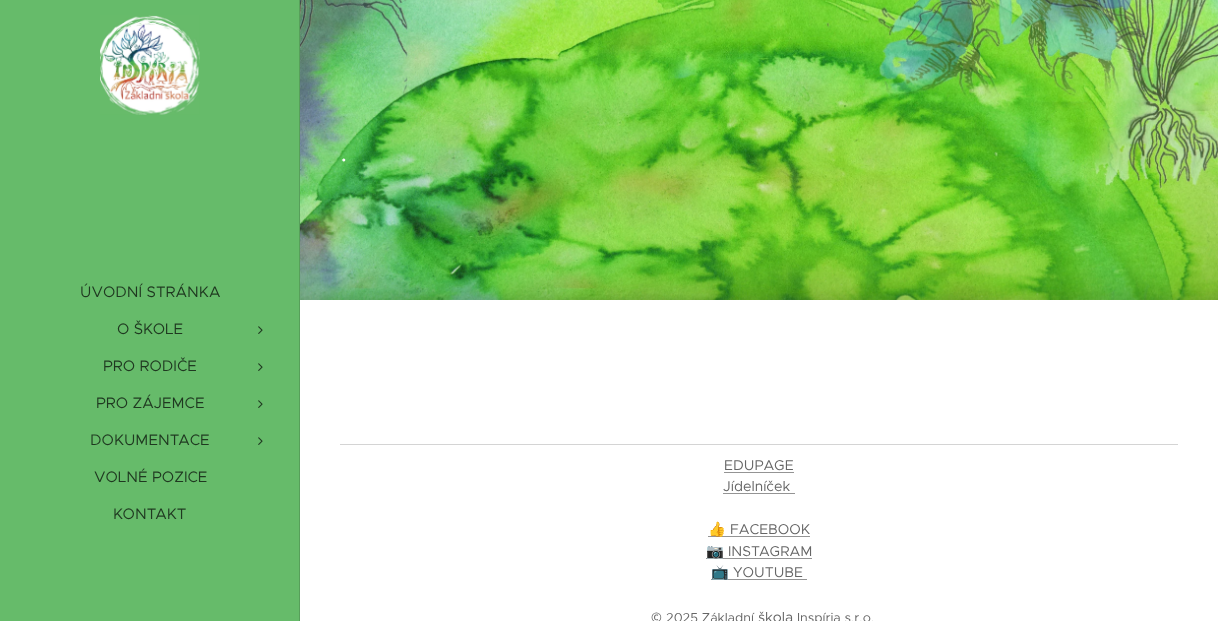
<svg xmlns="http://www.w3.org/2000/svg" xmlns:xlink="http://www.w3.org/1999/xlink" width="1218" height="621" viewBox="0 0 1218 621">
<style>
.cls-1{font:300 32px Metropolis;fill:#ffffff}
.cls-2{font:15.25px Metropolis;fill:#1f3820}
.cls-3{font:14.25px Metropolis;fill:#666666}
.cls-4{font:14.25px Noto Color Emoji;fill:#666666}
.cls-5{font:13px Noto Sans;fill:#666666}
.cls-6{font:13px Metropolis;fill:#666666}
</style>
<rect width="100%" height="100%" fill="#ffffff"/>
<image xlink:href="image0.png" x="300" y="0" width="918" height="300"/>
<rect fill="#66bb6a" x="0" y="0" width="299" height="621"/>
<image xlink:href="image1.png" x="100" y="15" width="100" height="100"/>
<image xlink:href="image2.png" x="258" y="326" width="5" height="8"/>
<image xlink:href="image2.png" x="258" y="363" width="5" height="8"/>
<image xlink:href="image2.png" x="258" y="400" width="5" height="8"/>
<image xlink:href="image2.png" x="258" y="437" width="5" height="8"/>
<rect fill="#579f5a" x="299" y="0" width="1" height="621"/>
<rect fill="#d4d4d4" x="340" y="444" width="838" height="1"/>
<rect fill="#949494" x="724" y="472" width="70" height="1"/>
<rect fill="#949494" x="723" y="493" width="72" height="1"/>
<rect fill="#949494" x="708" y="536" width="102" height="1"/>
<rect fill="#949494" x="706" y="558" width="106" height="1"/>
<rect fill="#949494" x="711" y="579" width="96" height="1"/>
<text class="cls-1" x="340" y="161">.</text>
<text class="cls-2" x="80" y="297">ÚVODNÍ STRÁNKA</text>
<text class="cls-2" x="117" y="334">O ŠKOLE</text>
<text class="cls-2" x="103" y="371">PRO RODIČE</text>
<text class="cls-2" x="96" y="408">PRO ZÁJEMCE</text>
<text class="cls-2" x="90" y="445">DOKUMENTACE</text>
<text class="cls-2" x="94" y="482">VOLNÉ POZICE</text>
<text class="cls-2" x="113" y="519">KONTAKT</text>
<text class="cls-3" x="724" y="470">EDUPAGE</text>
<text class="cls-3" x="723" y="491">Jídelníček</text>
<text class="cls-4" x="708" y="534">👍</text>
<text class="cls-3" x="730" y="534">FACEBOOK</text>
<text class="cls-4" x="706" y="556">📷</text>
<text class="cls-3" x="728" y="556">INSTAGRAM</text>
<text class="cls-4" x="711" y="577">📺</text>
<text class="cls-3" x="733" y="577">YOUTUBE</text>
<text class="cls-5" x="651" y="622">©</text>
<text class="cls-6" x="666" y="622">2025 Základní</text>
<text class="cls-3" x="758" y="622">škola</text>
<text class="cls-6" x="797" y="622">Inspíria s.r.o.</text>
</svg>
